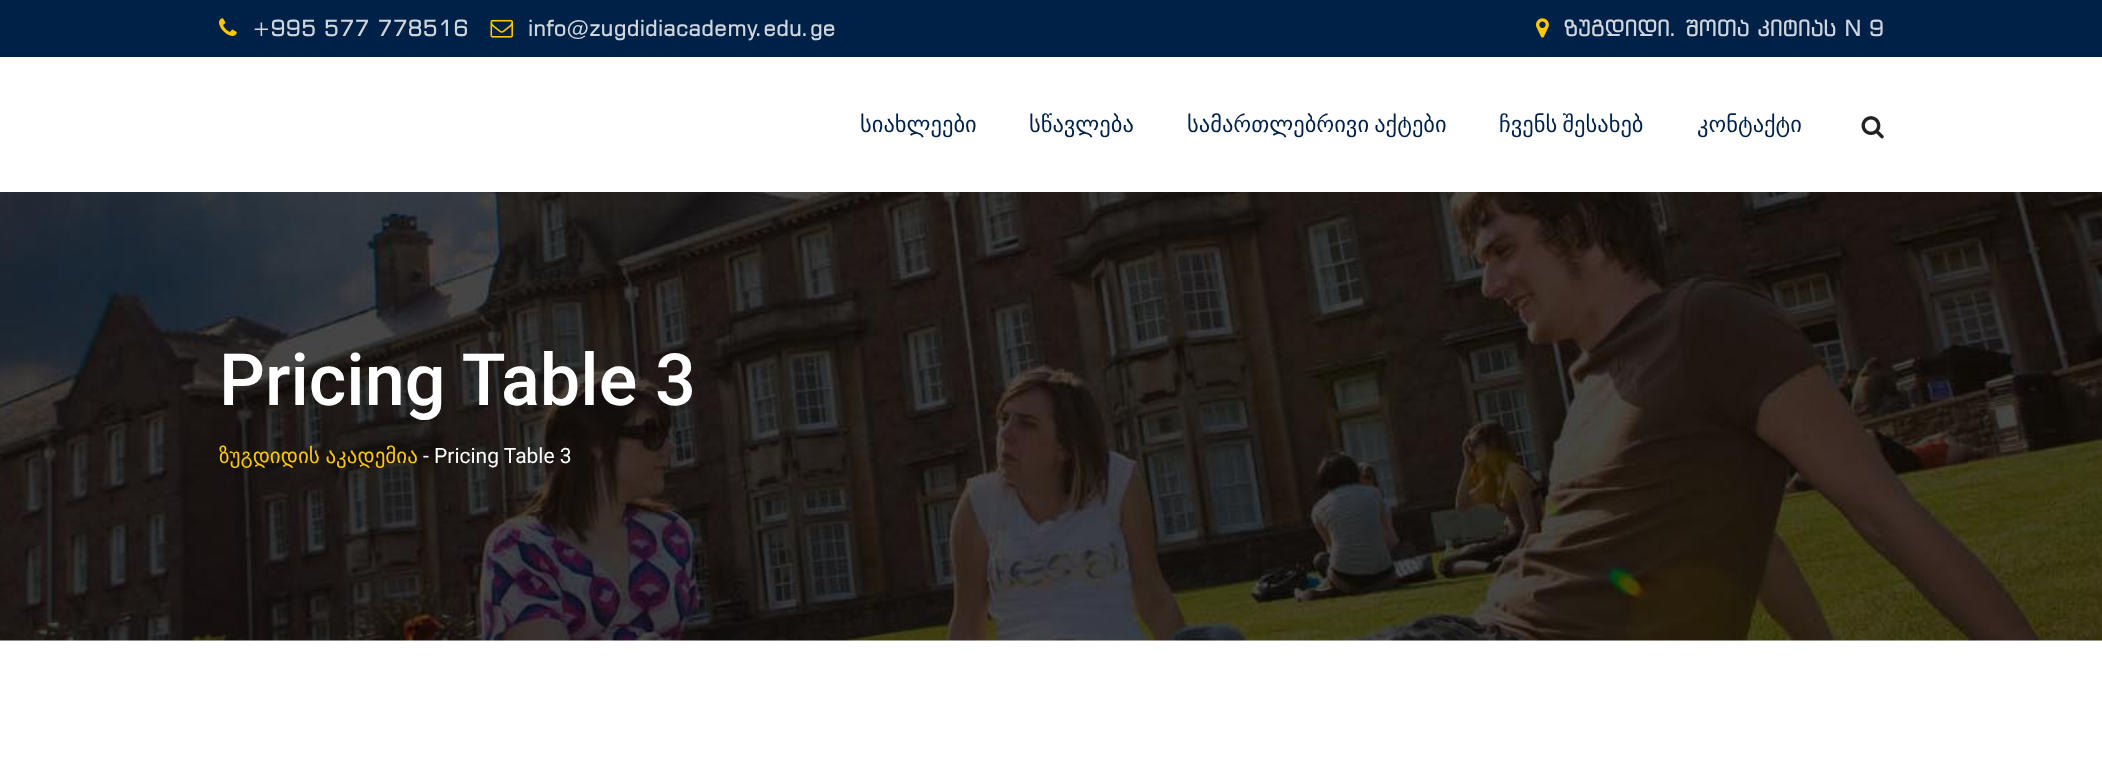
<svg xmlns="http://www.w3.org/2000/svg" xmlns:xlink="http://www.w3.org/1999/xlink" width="2102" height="773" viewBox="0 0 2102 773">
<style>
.cls-1{font:22.5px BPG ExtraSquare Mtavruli;fill:#d0d6dd}
.cls-2{font:22.5px DejaVu Sans;fill:#002147}
.cls-3{font:500 72px Roboto;fill:#ffffff}
.cls-4{font:21px DejaVu Sans;fill:#fdc800}
.cls-5{font:21px Roboto;fill:#ffffff}
</style>
<rect width="100%" height="100%" fill="#ffffff"/>
<rect fill="#002147" x="0" y="0" width="2102" height="57"/>
<image xlink:href="image0.png" x="219" y="18" width="18" height="18"/>
<image xlink:href="image1.png" x="490" y="19" width="23" height="19"/>
<image xlink:href="image2.png" x="1536" y="18" width="13" height="20"/>
<image xlink:href="image3.png" x="1861" y="116" width="23" height="23"/>
<image xlink:href="image4.png" x="0" y="192" width="2102" height="449"/>
<text class="cls-1" x="252" y="36">+995 577 778516</text>
<text class="cls-1" x="528" y="36">info@zugdidiacademy.edu.ge</text>
<text class="cls-1" x="1564" y="36">ზუგდიდი. შოთა კიტიას N 9</text>
<text class="cls-2" x="860" y="132">სიახლეები</text>
<text class="cls-2" x="1029" y="132">სწავლება</text>
<text class="cls-2" x="1187" y="132" word-spacing="-2">სამართლებრივი აქტები</text>
<text class="cls-2" x="1499" y="132" word-spacing="-2">ჩვენს შესახებ</text>
<text class="cls-2" x="1697" y="132">კონტაქტი</text>
<text class="cls-3" x="219" y="405">Pricing Table 3</text>
<text class="cls-4" x="219" y="463" word-spacing="-1">ზუგდიდის აკადემია</text>
<text class="cls-5" x="423" y="463">- Pricing Table 3</text>
</svg>
